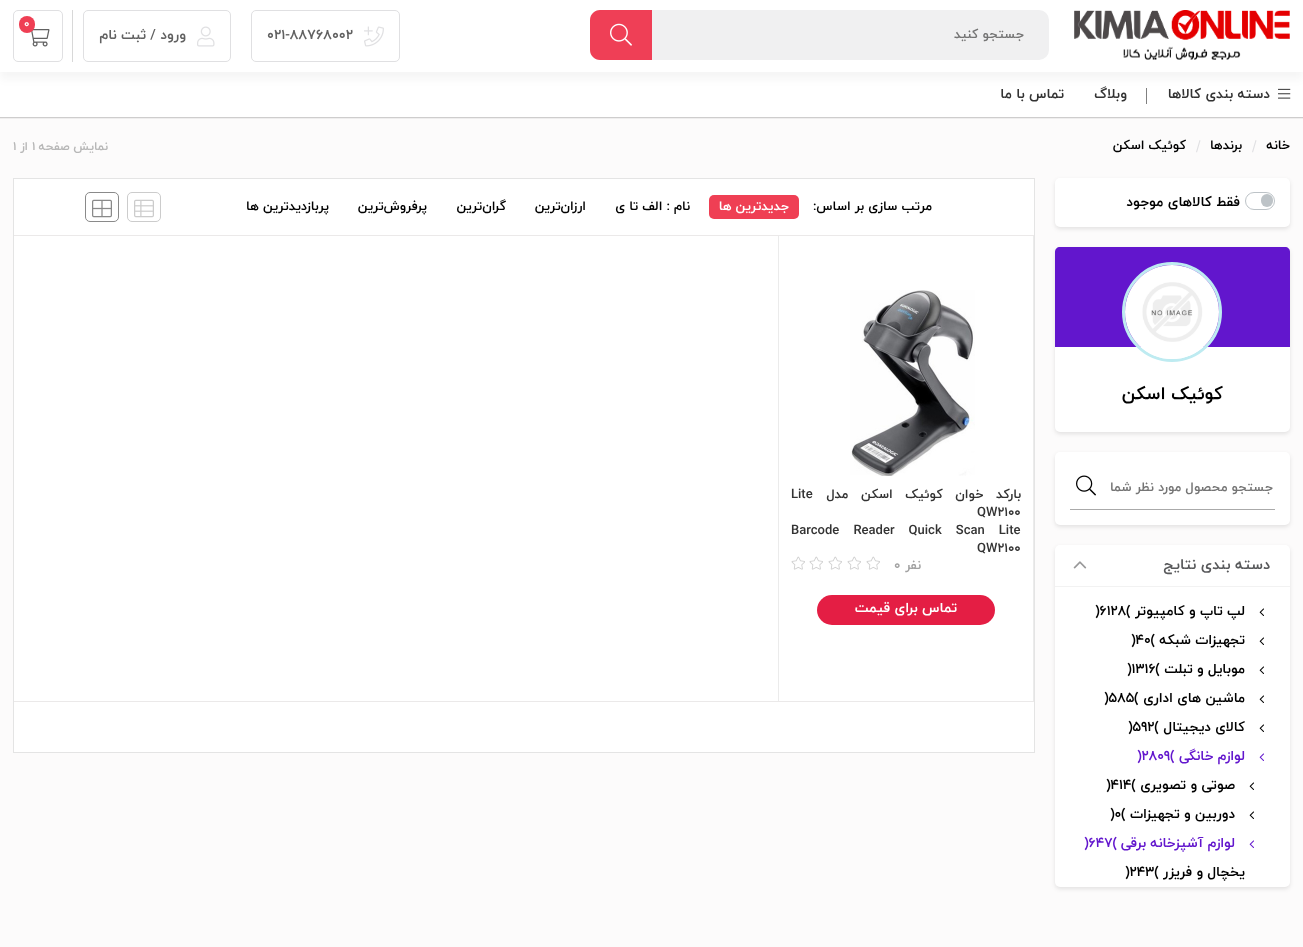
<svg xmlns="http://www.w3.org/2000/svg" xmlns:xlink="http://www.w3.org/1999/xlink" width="1303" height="947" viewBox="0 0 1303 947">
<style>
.cls-1{font:bold 13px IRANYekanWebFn;direction:rtl;fill:#757575}
.cls-2{font:bold 11px IRANYekanWebFn;fill:#ffffff}
.cls-3{font:bold 14px IRANYekanWebFn;fill:#616161}
.cls-4{font:bold 14px IRANYekanWebFn;direction:rtl;fill:#616161}
.cls-5{font:bold 14px IRANYekanWebFn;direction:rtl;fill:#333333}
.cls-6{font:bold 13px IRANYekanWebFn;direction:rtl;fill:#000000}
.cls-7{font:bold 12px IRANYekanWebFn;direction:rtl;fill:#b7b7b7}
.cls-8{font:bold 12px IRANYekanWebFn;fill:#b7b7b7}
.cls-9{font:bold 14px IRANYekanWebFn;direction:rtl;fill:#000000}
.cls-10{font:bold 18px IRANYekanWebFn;direction:rtl;fill:#000000}
.cls-11{font:bold 15px IRANYekanWebFn;direction:rtl;fill:#58595b}
.cls-12{font:bold 13.75px IRANYekanWebFn;direction:rtl;fill:#000000}
.cls-13{font:bold 13.75px IRANYekanWebFn;fill:#000000}
.cls-14{font:bold 13.75px IRANYekanWebFn;direction:rtl;fill:#6216cd}
.cls-15{font:bold 13.75px IRANYekanWebFn;fill:#6216cd}
.cls-16{font:bold 13px IRANYekanWebFn;direction:rtl;fill:#ffffff}
.cls-17{font:bold 13px IRANYekanWebFn;direction:rtl;fill:#333333}
.cls-18{font:bold 13px IRANYekanWebFn;fill:#333333}
.cls-19{font:bold 13px IRANYekanWebFn;direction:rtl;fill:#a2a2a2}
.cls-20{font:bold 13px IRANYekanWebFn;fill:#a2a2a2}
.cls-21{font:bold 14px IRANYekanWebFn;direction:rtl;fill:#ffffff}
</style>
<rect width="100%" height="100%" fill="#fcfbfb"/>
<rect fill="#ffffff" x="0" y="72" width="1303" height="45"/>
<image xlink:href="image5.png" x="1278" y="88" width="13" height="11"/>
<rect fill="#808080" x="1146" y="88" width="1" height="16"/>
<rect fill="#000000" fill-opacity="0.04" filter="blur(4px)" x="0" y="7" width="1303" height="72"/>
<rect fill="#ffffff" x="0" y="0" width="1303" height="72"/>
<image xlink:href="image0.png" x="1074" y="10" width="216" height="50"/>
<rect fill="#f0f0f1" x="590" y="10" width="459" height="50" rx="10"/>
<path fill="#ef3f56" d="M600 10H652V60H600C594.5 60 590 55.5 590 50V20C590 14.5 594.5 10 600 10Z"/>
<image xlink:href="image1.png" x="610" y="23" width="22" height="23"/>
<rect fill="#d8d8d8" x="72" y="10" width="1" height="52"/>
<rect fill="none" stroke="#e0e0e2" x="13.5" y="10.5" width="49" height="51" rx="4.5"/>
<image xlink:href="image2.png" x="31" y="29" width="19" height="18"/>
<rect fill="#ef3f54" x="19" y="16" width="16" height="17" rx="8"/>
<rect fill="none" stroke="#e0e0e2" x="251.5" y="10.5" width="148" height="51" rx="4.5"/>
<image xlink:href="image3.png" x="364" y="26" width="20" height="21"/>
<rect fill="none" stroke="#e0e0e2" x="83.5" y="10.5" width="147" height="51" rx="4.5"/>
<image xlink:href="image4.png" x="197" y="26" width="18" height="21"/>
<rect fill="#efeeee" x="0" y="118" width="1303" height="1"/>
<rect fill="#cecdcd" x="0" y="117" width="1303" height="1"/>
<path fill="#e0e0e2" d="M1255.5 140L1256.5 140.5L1253 152.5L1252 152Z"/>
<path fill="#e0e0e2" d="M1199.5 140L1200.5 140.5L1197 152.5L1196 152Z"/>
<rect fill="#000000" fill-opacity="0.1" filter="blur(2px)" x="1055" y="180" width="235" height="49" rx="5"/>
<rect fill="#ffffff" x="1055" y="178" width="235" height="49" rx="5"/>
<rect fill="none" stroke="#bdc3c7" x="1245.5" y="192.5" width="29" height="17" rx="8.5"/>
<rect fill="#bdc3c7" x="1261" y="194" width="12" height="13" rx="6"/>
<rect fill="#000000" fill-opacity="0.1" filter="blur(2px)" x="1055" y="249" width="235" height="185" rx="5"/>
<rect fill="#ffffff" x="1055" y="247" width="235" height="185" rx="5"/>
<path fill="#6216cd" d="M1060 247H1285C1288 247 1290 249 1290 252V347H1055V252C1055 249 1057 247 1060 247Z"/>
<circle fill="none" stroke="#beebf1" stroke-width="3" cx="1172" cy="312" r="48.5"/>
<image xlink:href="image6.png" x="1125" y="265" width="94" height="94"/>
<rect fill="#000000" fill-opacity="0.1" filter="blur(2px)" x="1055" y="454" width="235" height="73" rx="5"/>
<rect fill="#ffffff" x="1055" y="452" width="235" height="73" rx="5"/>
<rect fill="#aaaaaa" x="1070" y="509" width="205" height="1"/>
<image xlink:href="image7.png" x="1076" y="475" width="20" height="21"/>
<rect fill="#000000" fill-opacity="0.1" filter="blur(2px)" x="1055" y="547" width="235" height="342" rx="5"/>
<rect fill="#ffffff" x="1055" y="545" width="235" height="342" rx="5"/>
<rect fill="#f2f2f2" x="1055" y="586" width="235" height="1"/>
<image xlink:href="image8.png" x="1073" y="561" width="14" height="8"/>
<image xlink:href="image9.png" x="1259" y="608" width="5" height="8"/>
<image xlink:href="image9.png" x="1259" y="637" width="5" height="8"/>
<image xlink:href="image9.png" x="1259" y="666" width="5" height="8"/>
<image xlink:href="image9.png" x="1259" y="695" width="5" height="8"/>
<image xlink:href="image9.png" x="1259" y="724" width="5" height="8"/>
<image xlink:href="image10.png" x="1259" y="753" width="5" height="8"/>
<image xlink:href="image9.png" x="1249" y="782" width="5" height="8"/>
<image xlink:href="image9.png" x="1249" y="811" width="5" height="8"/>
<image xlink:href="image10.png" x="1249" y="840" width="5" height="8"/>
<rect fill="#ffffff" stroke="#e4e4e4" x="13.5" y="178.5" width="1021" height="574"/>
<rect fill="#ebe9e9" x="14" y="235" width="1020" height="1"/>
<rect fill="#ef3f54" x="709" y="195" width="90" height="24" rx="5"/>
<rect fill="none" stroke="#cccccc" x="127.5" y="192.5" width="33" height="29" rx="4.5"/>
<image xlink:href="image11.png" x="134" y="199" width="20" height="19"/>
<rect fill="none" stroke="#8a8a8a" x="85.5" y="192.5" width="33" height="29" rx="4.5"/>
<image xlink:href="image12.png" x="92" y="199" width="20" height="19"/>
<rect fill="#ebebeb" x="1033" y="236" width="1" height="466"/>
<rect fill="#ebebeb" x="778" y="236" width="1" height="466"/>
<image xlink:href="image13.png" x="850" y="290" width="125" height="186"/>
<image xlink:href="image14.png" x="866" y="556" width="14" height="14"/>
<image xlink:href="image14.png" x="847" y="556" width="14" height="14"/>
<image xlink:href="image14.png" x="828" y="556" width="14" height="14"/>
<image xlink:href="image14.png" x="809" y="556" width="14" height="14"/>
<image xlink:href="image14.png" x="791" y="556" width="14" height="14"/>
<rect fill="#e41e44" x="817" y="595" width="178" height="30" rx="15"/>
<rect fill="#ebe9e9" x="14" y="701" width="1020" height="1"/>
<text class="cls-1" x="1024" y="38">جستجو كنيد</text>
<text class="cls-2" x="24" y="27">0</text>
<text class="cls-3" x="267" y="39">021-88768002</text>
<text class="cls-4" x="186" y="39">ورود / ثبت نام</text>
<text class="cls-5" x="1270" y="98">دسته بندی کالاها</text>
<text class="cls-5" x="1127" y="98">وبلاگ</text>
<text class="cls-5" x="1064" y="98">تماس با ما</text>
<text class="cls-6" x="1290" y="149">خانه</text>
<text class="cls-6" x="1242" y="149">برندها</text>
<text class="cls-6" x="1186" y="149">کوئیک اسکن</text>
<text class="cls-7" x="108" y="150">نمایش صفحه</text>
<text class="cls-8" x="32" y="150">1</text>
<text class="cls-7" x="28" y="150">از</text>
<text class="cls-8" x="13" y="150">1</text>
<text class="cls-9" x="1240" y="206">فقط کالاهای موجود</text>
<text class="cls-10" x="1223" y="399">کوئیک اسکن</text>
<text class="cls-1" x="1273" y="491">جستجو محصول مورد نظر شما</text>
<text class="cls-11" x="1270" y="569">دسته بندی نتایج</text>
<text class="cls-12" x="1245" y="615">لپ تاپ و کامپیوتر</text>
<text class="cls-13" x="1095" y="615">)6128(</text>
<text class="cls-12" x="1245" y="644">تجهیزات شبکه</text>
<text class="cls-13" x="1131" y="644">)40(</text>
<text class="cls-12" x="1245" y="673">موبایل و تبلت</text>
<text class="cls-13" x="1127" y="673">)1316(</text>
<text class="cls-12" x="1245" y="702">ماشین های اداری</text>
<text class="cls-13" x="1104" y="702">)585(</text>
<text class="cls-12" x="1245" y="731">کالای دیجیتال</text>
<text class="cls-13" x="1128" y="731">)592(</text>
<text class="cls-14" x="1245" y="760">لوازم خانگی</text>
<text class="cls-15" x="1137" y="760">)2809(</text>
<text class="cls-12" x="1235" y="789">صوتی و تصویری</text>
<text class="cls-13" x="1106" y="789">)414(</text>
<text class="cls-12" x="1235" y="818">دوربین و تجهیزات</text>
<text class="cls-13" x="1110" y="818">)0(</text>
<text class="cls-14" x="1235" y="847">لوازم آشپزخانه برقی</text>
<text class="cls-15" x="1084" y="847">)647(</text>
<text class="cls-12" x="1245" y="876">یخچال و فریزر</text>
<text class="cls-13" x="1125" y="876">)243(</text>
<text class="cls-6" x="932" y="210">مرتب سازی بر اساس:</text>
<text class="cls-16" x="789" y="210">جدیدترین ها</text>
<text class="cls-6" x="690" y="210">نام : الف تا ی</text>
<text class="cls-6" x="586" y="210">ارزان‌ترین</text>
<text class="cls-6" x="506" y="210">گران‌ترین</text>
<text class="cls-6" x="427" y="210">پرفروش‌ترین</text>
<text class="cls-6" x="329" y="210">پربازدید‌ترین ها</text>
<text class="cls-17" x="1021" y="498" word-spacing="8.5">بارکد خوان کوئیک اسکن مدل</text>
<text class="cls-18" x="791" y="498">Lite</text>
<text class="cls-18" x="977" y="516">QW2100</text>
<text class="cls-18" x="791" y="534" word-spacing="10">Barcode Reader Quick Scan Lite</text>
<text class="cls-18" x="977" y="552">QW2100</text>
<text class="cls-19" x="921" y="569">نفر</text>
<text class="cls-20" x="894" y="569">0</text>
<text class="cls-21" x="957" y="612">تماس برای قیمت</text>
</svg>
